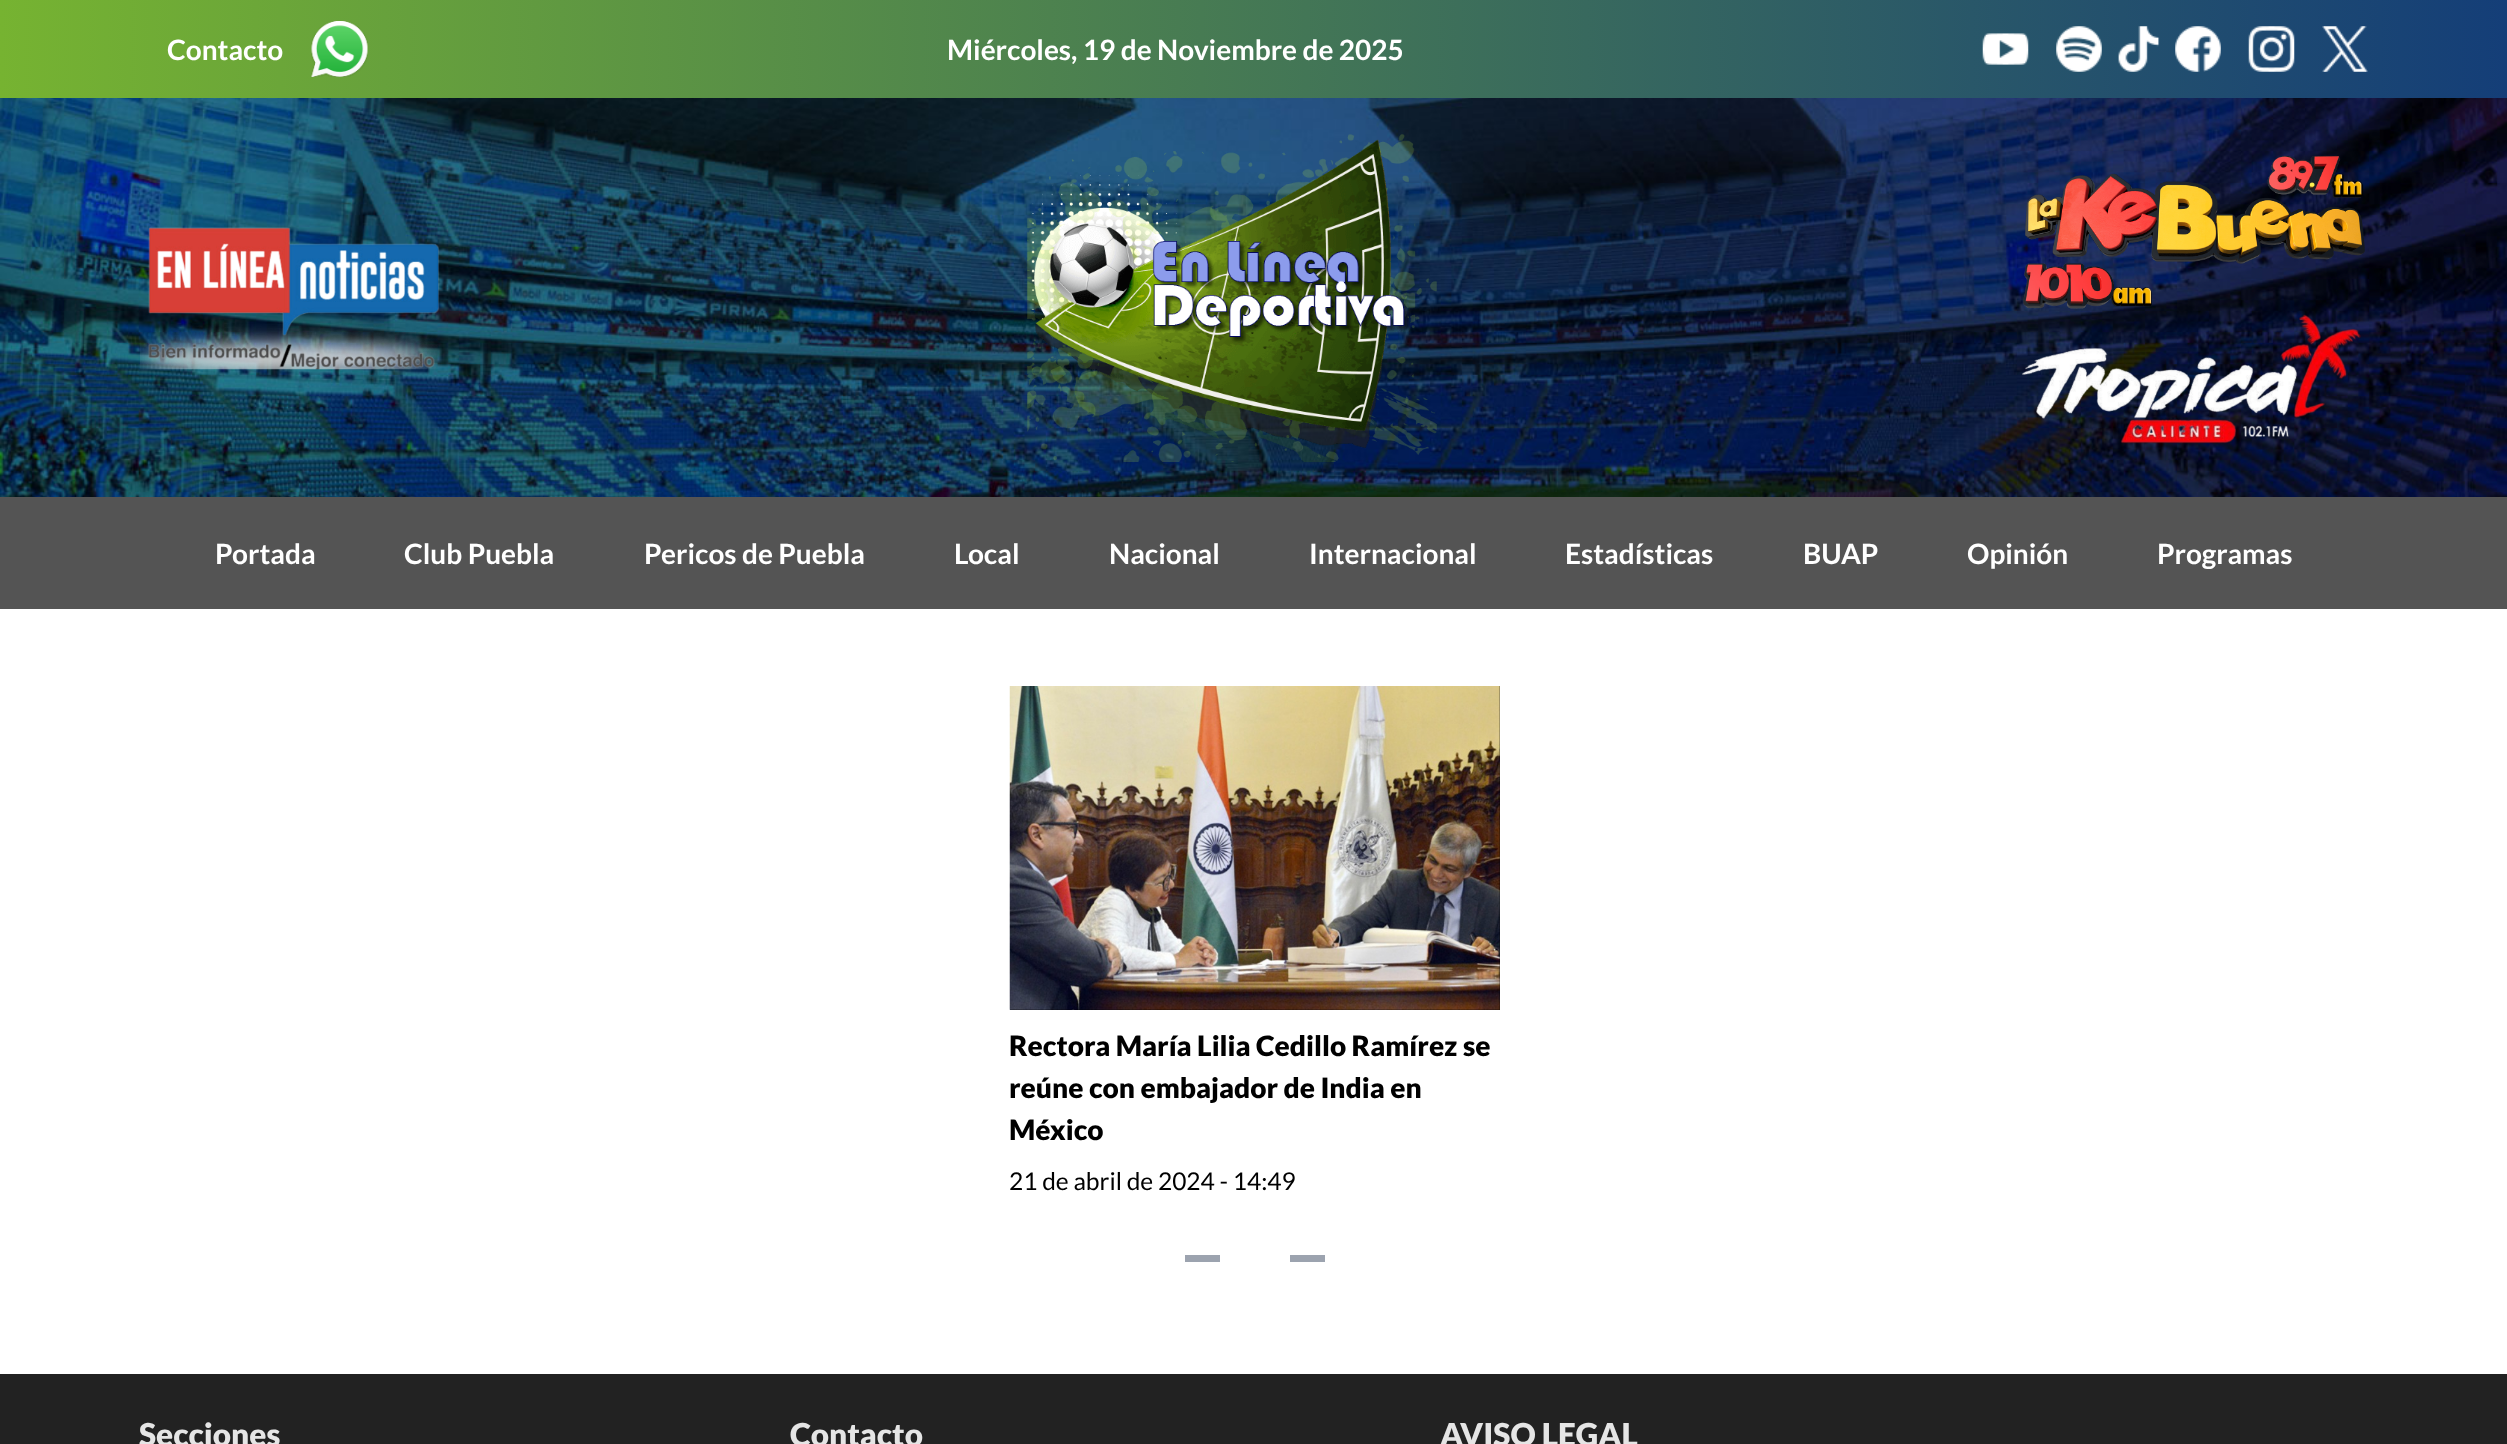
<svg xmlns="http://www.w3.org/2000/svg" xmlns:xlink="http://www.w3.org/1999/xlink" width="2507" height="1444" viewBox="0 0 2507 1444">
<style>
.cls-1{font:bold 28px Lato;fill:#ffffff}
.cls-2{font:900 28px Lato;fill:#000000}
.cls-3{font:24.5px Lato;fill:#000000}
.cls-4{font:900 31.5px Lato;fill:#e5e5e5}
</style>
<defs>
<linearGradient id="g1" gradientUnits="userSpaceOnUse" x1="0" y1="49" x2="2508" y2="49"><stop offset="0" stop-color="#76b331"/><stop offset="1" stop-color="#143e78"/></linearGradient>
</defs>
<rect width="100%" height="100%" fill="#ffffff"/>
<rect fill="url(#g1)" x="0" y="0" width="2507" height="98"/>
<image xlink:href="image0.png" x="311" y="21" width="57" height="56"/>
<image xlink:href="image1.png" x="1982" y="33" width="47" height="32"/>
<image xlink:href="image2.png" x="2056" y="26" width="46" height="46"/>
<image xlink:href="image3.png" x="2118" y="26" width="42" height="46"/>
<image xlink:href="image4.png" x="2175" y="26" width="46" height="46"/>
<image xlink:href="image5.png" x="2248" y="26" width="47" height="46"/>
<image xlink:href="image6.png" x="2322" y="26" width="46" height="46"/>
<image xlink:href="image7.png" x="0" y="98" width="2507" height="399"/>
<image xlink:href="image8.png" x="140" y="227" width="302" height="143"/>
<image xlink:href="image9.png" x="1027" y="134" width="410" height="328"/>
<image xlink:href="image10.png" x="2023" y="155" width="342" height="154"/>
<image xlink:href="image11.png" x="2021" y="314" width="340" height="130"/>
<rect fill="#545454" x="0" y="497" width="2507" height="112"/>
<rect fill="#000000" x="1010" y="686" width="490" height="324"/>
<image xlink:href="image12.png" x="1009" y="686" width="491" height="324"/>
<rect fill="#9ca3af" x="1185" y="1255" width="35" height="7"/>
<rect fill="#9ca3af" x="1290" y="1255" width="35" height="7"/>
<rect fill="#222222" x="0" y="1374" width="2507" height="70"/>
<text class="cls-1" x="167" y="60">Contacto</text>
<text class="cls-1" x="947" y="60">Miércoles, 19 de Noviembre de 2025</text>
<text class="cls-1" x="215" y="564">Portada</text>
<text class="cls-1" x="404" y="564">Club Puebla</text>
<text class="cls-1" x="644" y="564">Pericos de Puebla</text>
<text class="cls-1" x="954" y="564">Local</text>
<text class="cls-1" x="1109" y="564">Nacional</text>
<text class="cls-1" x="1309" y="564">Internacional</text>
<text class="cls-1" x="1565" y="564">Estadísticas</text>
<text class="cls-1" x="1803" y="564">BUAP</text>
<text class="cls-1" x="1967" y="564">Opinión</text>
<text class="cls-1" x="2157" y="564">Programas</text>
<text class="cls-2"><tspan x="1009" y="1056">Rectora María Lilia Cedillo Ramírez se</tspan><tspan x="1009" y="1098">reúne con embajador de India en</tspan><tspan x="1009" y="1140">México</tspan></text>
<text class="cls-3" x="1009" y="1190">21 de abril de 2024 - 14:49</text>
<text class="cls-4" x="139" y="1446">Secciones</text>
<text class="cls-4" x="790" y="1446">Contacto</text>
<text class="cls-4" x="1440" y="1446">AVISO LEGAL</text>
</svg>
